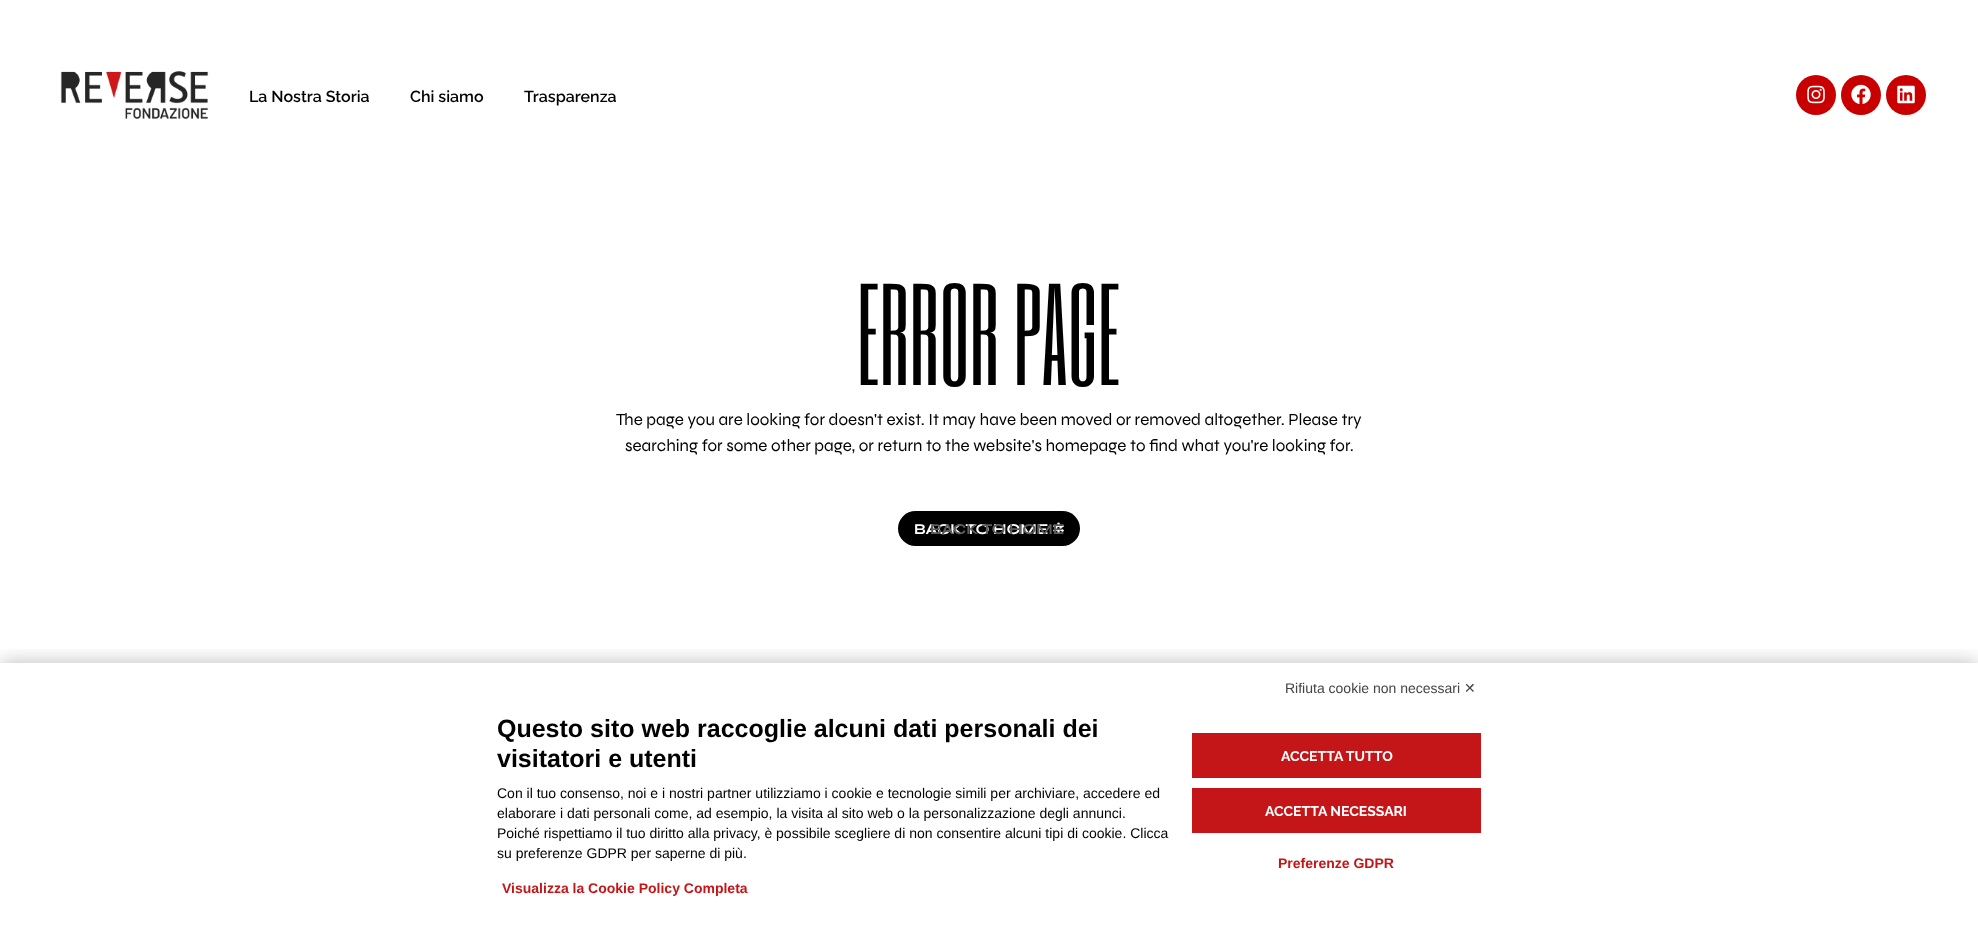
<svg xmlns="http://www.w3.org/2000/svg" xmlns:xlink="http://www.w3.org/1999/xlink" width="1978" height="945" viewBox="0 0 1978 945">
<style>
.cls-1{font:600 16px Raleway;fill:#000000}
.cls-2{font:120px Six Caps;fill:#000000}
.cls-3{font:17px Syne;fill:#000000}
.cls-4{font:bold 15px Syne;fill:#ffffff}
.cls-5{font:bold 15px DejaVu Sans;fill:#ffffff}
.cls-6{font:bold 15px Syne;fill:#5c5c5c}
.cls-7{font:14px Liberation Sans;fill:#444444}
.cls-8{font:14px DejaVu Sans;fill:#444444}
.cls-9{font:bold 25px Liberation Sans;fill:#000000}
.cls-10{font:14px Liberation Sans;fill:#000000}
.cls-11{font:bold 14px Liberation Sans;fill:#c41618}
.cls-12{font:bold 14px Raleway;fill:#ffffff}
</style>
<defs>
<clipPath id="clip1"><rect x="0" y="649" width="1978" height="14"/></clipPath>
</defs>
<rect width="100%" height="100%" fill="#ffffff"/>
<image xlink:href="image0.png" x="60" y="71" width="149" height="48"/>
<circle fill="#c80000" cx="1816" cy="95" r="20"/>
<image xlink:href="image1.png" x="1807" y="85" width="18" height="19"/>
<circle fill="#c80000" cx="1861" cy="95" r="20"/>
<image xlink:href="image2.png" x="1851" y="84" width="20" height="20"/>
<circle fill="#c80000" cx="1906" cy="95" r="20"/>
<image xlink:href="image3.png" x="1897" y="85" width="18" height="19"/>
<rect fill="#000000" x="898" y="511" width="182" height="35" rx="17.5"/>
<g clip-path="url(#clip1)">
<rect fill="#000000" fill-opacity="0.27" filter="blur(10px)" x="0" y="663" width="1978" height="282"/>
</g>
<rect fill="#c41618" x="1192" y="733" width="289" height="45"/>
<rect fill="#c41618" x="1192" y="788" width="289" height="45"/>
<text class="cls-1" x="249" y="102">La Nostra Storia</text>
<text class="cls-1" x="410" y="102">Chi siamo</text>
<text class="cls-1" x="524" y="102">Trasparenza</text>
<text class="cls-2" x="857" y="385">ERROR PAGE</text>
<text class="cls-3" x="616" y="425">The page you are looking for doesn't exist. It may have been moved or removed altogether. Please try</text>
<text class="cls-3" x="625" y="451">searching for some other page, or return to the website's homepage to find what you're looking for.</text>
<text class="cls-4" x="914" y="534">BACK TO HOME</text>
<text class="cls-5" x="1052" y="534">✲</text>
<text class="cls-6" x="930" y="534">BACK TO HOME</text>
<text class="cls-7" x="1285" y="693">Rifiuta cookie non necessari</text>
<text class="cls-8" x="1464" y="693">✕</text>
<text class="cls-9"><tspan x="497" y="737">Questo sito web raccoglie alcuni dati personali dei</tspan><tspan x="497" y="767">visitatori e utenti</tspan></text>
<text class="cls-10"><tspan x="497" y="798">Con il tuo consenso, noi e i nostri partner utilizziamo i cookie e tecnologie simili per archiviare, accedere ed</tspan><tspan x="497" y="818">elaborare i dati personali come, ad esempio, la visita al sito web o la personalizzazione degli annunci.</tspan><tspan x="497" y="838">Poiché rispettiamo il tuo diritto alla privacy, è possibile scegliere di non consentire alcuni tipi di cookie. Clicca</tspan><tspan x="497" y="858">su preferenze GDPR per saperne di più.</tspan></text>
<text class="cls-11" x="502" y="893">Visualizza la Cookie Policy Completa</text>
<text class="cls-12" x="1281" y="761">ACCETTA TUTTO</text>
<text class="cls-12" x="1265" y="816">ACCETTA NECESSARI</text>
<text class="cls-11" x="1278" y="868">Preferenze GDPR</text>
</svg>
